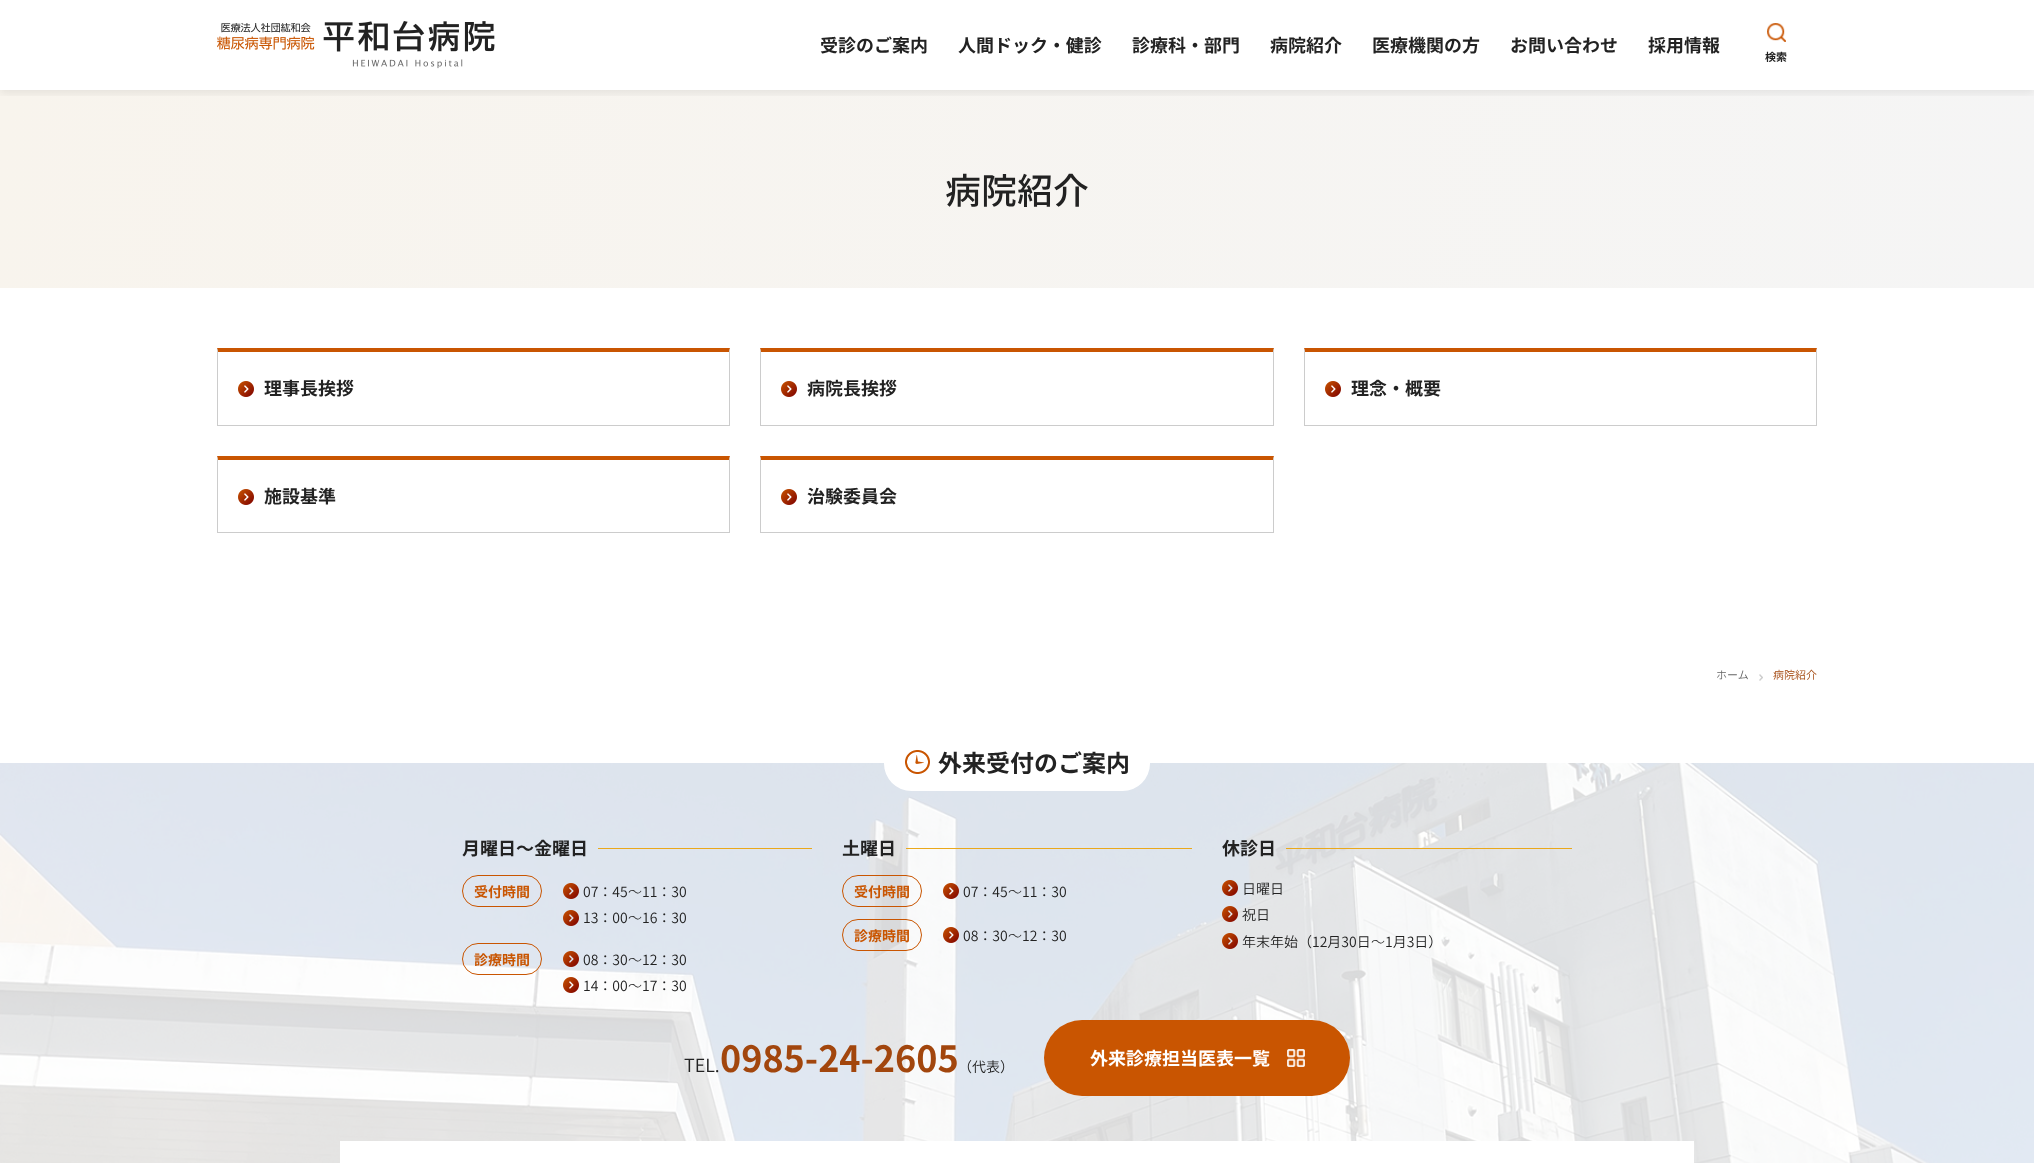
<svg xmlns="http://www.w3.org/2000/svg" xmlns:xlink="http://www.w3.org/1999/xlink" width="2034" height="1163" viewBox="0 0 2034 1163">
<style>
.cls-1{font:bold 18px Noto Sans JP;fill:#222222}
.cls-2{font:bold 11px Noto Sans JP;fill:#222222}
.cls-3{font:500 36px Noto Sans JP;fill:#222222}
.cls-4{font:300 11px Noto Sans JP;fill:#666666}
.cls-5{font:300 11px Noto Sans JP;fill:#a2460d}
.cls-6{font:bold 24px Noto Sans JP;fill:#222222}
.cls-7{font:bold 18px Noto Sans CJK JP;fill:#222222}
.cls-8{font:bold 14px Noto Sans JP;fill:#c95501}
.cls-9{font:300 14px Noto Sans JP;fill:#222222}
.cls-10{font:300 14px Noto Sans CJK JP;fill:#222222}
.cls-11{font:300 18px Noto Sans JP;fill:#222222}
.cls-12{font:bold 36px Noto Sans JP;fill:#a2460d}
.cls-13{font:bold 18px Noto Sans JP;fill:#ffffff}
</style>
<defs>
<linearGradient id="g1" gradientUnits="userSpaceOnUse" x1="6.1" y1="47" x2="2028" y2="331"><stop offset="0" stop-color="#f8f4ed"/><stop offset="1" stop-color="#f5f5f5"/></linearGradient>
<clipPath id="clip1"><rect x="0" y="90" width="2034" height="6"/></clipPath>
</defs>
<rect width="100%" height="100%" fill="#ffffff"/>
<rect fill="url(#g1)" x="0" y="90" width="2034" height="198"/>
<g clip-path="url(#clip1)">
<rect fill="#000000" fill-opacity="0.08" filter="blur(5px)" x="0" y="3" width="2034" height="90"/>
</g>
<image xlink:href="image0.png" x="217" y="21" width="278" height="48"/>
<image xlink:href="image1.png" x="1767" y="23" width="19" height="19"/>
<path fill="#c95501" d="M217 348H730L729 352H218Z"/>
<path fill="#cccccc" d="M730 348V426L729 425V352Z"/>
<rect fill="#cccccc" x="217" y="425" width="513" height="1"/>
<path fill="#cccccc" d="M217 426V348L218 352V425Z"/>
<image xlink:href="image2.png" x="238" y="381" width="16" height="16"/>
<path fill="#c95501" d="M760 348H1274L1273 352H761Z"/>
<path fill="#cccccc" d="M1274 348V426L1273 425V352Z"/>
<rect fill="#cccccc" x="760" y="425" width="514" height="1"/>
<path fill="#cccccc" d="M760 426V348L761 352V425Z"/>
<image xlink:href="image2.png" x="781" y="381" width="16" height="16"/>
<path fill="#c95501" d="M1304 348H1817L1816 352H1305Z"/>
<path fill="#cccccc" d="M1817 348V426L1816 425V352Z"/>
<rect fill="#cccccc" x="1304" y="425" width="513" height="1"/>
<path fill="#cccccc" d="M1304 426V348L1305 352V425Z"/>
<image xlink:href="image2.png" x="1325" y="381" width="16" height="16"/>
<path fill="#c95501" d="M217 456H730L729 460H218Z"/>
<path fill="#cccccc" d="M730 456V533L729 532V460Z"/>
<rect fill="#cccccc" x="217" y="532" width="513" height="1"/>
<path fill="#cccccc" d="M217 533V456L218 460V532Z"/>
<image xlink:href="image2.png" x="238" y="489" width="16" height="16"/>
<path fill="#c95501" d="M760 456H1274L1273 460H761Z"/>
<path fill="#cccccc" d="M1274 456V533L1273 532V460Z"/>
<rect fill="#cccccc" x="760" y="532" width="514" height="1"/>
<path fill="#cccccc" d="M760 533V456L761 460V532Z"/>
<image xlink:href="image2.png" x="781" y="489" width="16" height="16"/>
<image xlink:href="image3.png" x="1759" y="674" width="4" height="7"/>
<image xlink:href="image4.png" x="0" y="763" width="2034" height="400"/>
<rect fill="#ffffff" x="884" y="736" width="266" height="55" rx="27.5"/>
<image xlink:href="image5.png" x="905" y="750" width="25" height="24"/>
<rect fill="#eaa81b" x="598" y="848" width="214" height="1"/>
<rect fill="none" stroke="#c95501" x="462.5" y="875.5" width="79" height="31" rx="15.5"/>
<image xlink:href="image6.png" x="563" y="883" width="16" height="16"/>
<image xlink:href="image7.png" x="563" y="910" width="16" height="16"/>
<rect fill="none" stroke="#c95501" x="462.5" y="943.5" width="79" height="31" rx="15.5"/>
<image xlink:href="image8.png" x="563" y="951" width="16" height="16"/>
<image xlink:href="image9.png" x="563" y="977" width="16" height="16"/>
<rect fill="#eaa81b" x="906" y="848" width="286" height="1"/>
<rect fill="none" stroke="#c95501" x="842.5" y="875.5" width="79" height="31" rx="15.5"/>
<image xlink:href="image10.png" x="943" y="883" width="16" height="16"/>
<rect fill="none" stroke="#c95501" x="842.5" y="919.5" width="79" height="31" rx="15.5"/>
<image xlink:href="image11.png" x="943" y="927" width="16" height="16"/>
<rect fill="#eaa81b" x="1286" y="848" width="286" height="1"/>
<image xlink:href="image12.png" x="1222" y="880" width="16" height="16"/>
<image xlink:href="image13.png" x="1222" y="906" width="16" height="16"/>
<image xlink:href="image14.png" x="1222" y="933" width="16" height="16"/>
<rect fill="#c95501" x="1044" y="1020" width="306" height="76" rx="38"/>
<image xlink:href="image15.png" x="1287" y="1049" width="18" height="18"/>
<rect fill="#ffffff" x="340" y="1141" width="1354" height="22"/>
<text class="cls-1" x="820" y="52">受診のご案内</text>
<text class="cls-1" x="958" y="52">人間ドック・健診</text>
<text class="cls-1" x="1132" y="52">診療科・部門</text>
<text class="cls-1" x="1270" y="52">病院紹介</text>
<text class="cls-1" x="1372" y="52">医療機関の方</text>
<text class="cls-1" x="1510" y="52">お問い合わせ</text>
<text class="cls-1" x="1648" y="52">採用情報</text>
<text class="cls-2" x="1765" y="61">検索</text>
<text class="cls-3" x="945" y="204">病院紹介</text>
<text class="cls-1" x="264" y="395">理事長挨拶</text>
<text class="cls-1" x="807" y="395">病院長挨拶</text>
<text class="cls-1" x="1351" y="395">理念・概要</text>
<text class="cls-1" x="264" y="503">施設基準</text>
<text class="cls-1" x="807" y="503">治験委員会</text>
<text class="cls-4" x="1716" y="679">ホーム</text>
<text class="cls-5" x="1773" y="679">病院紹介</text>
<text class="cls-6" x="938" y="772">外来受付のご案内</text>
<text class="cls-1" x="462" y="855">月曜日</text>
<text class="cls-7" x="516" y="855">～</text>
<text class="cls-1" x="534" y="855">金曜日</text>
<text class="cls-8" x="474" y="897">受付時間</text>
<text class="cls-9" x="583" y="897">07：45</text>
<text class="cls-10" x="628" y="897">～</text>
<text class="cls-9" x="642" y="897">11：30</text>
<text class="cls-9" x="583" y="923">13：00</text>
<text class="cls-10" x="628" y="923">～</text>
<text class="cls-9" x="642" y="923">16：30</text>
<text class="cls-8" x="474" y="965">診療時間</text>
<text class="cls-9" x="583" y="965">08：30</text>
<text class="cls-10" x="628" y="965">～</text>
<text class="cls-9" x="642" y="965">12：30</text>
<text class="cls-9" x="583" y="991">14：00</text>
<text class="cls-10" x="628" y="991">～</text>
<text class="cls-9" x="642" y="991">17：30</text>
<text class="cls-1" x="842" y="855">土曜日</text>
<text class="cls-8" x="854" y="897">受付時間</text>
<text class="cls-9" x="963" y="897">07：45</text>
<text class="cls-10" x="1008" y="897">～</text>
<text class="cls-9" x="1022" y="897">11：30</text>
<text class="cls-8" x="854" y="941">診療時間</text>
<text class="cls-9" x="963" y="941">08：30</text>
<text class="cls-10" x="1008" y="941">～</text>
<text class="cls-9" x="1022" y="941">12：30</text>
<text class="cls-1" x="1222" y="855">休診日</text>
<text class="cls-9"><tspan x="1242" y="894">日曜日</tspan><tspan x="1242" y="920">祝日</tspan><tspan x="1242" y="947">年末年始（12月30日</tspan></text>
<text class="cls-10" x="1371" y="947">～</text>
<text class="cls-9" x="1385" y="947">1月3日）</text>
<text class="cls-11" x="684" y="1072">TEL.</text>
<text class="cls-12" x="720" y="1072">0985-24-2605</text>
<text class="cls-9" x="958" y="1072">（代表）</text>
<text class="cls-13" x="1090" y="1065">外来診療担当医表一覧</text>
</svg>
